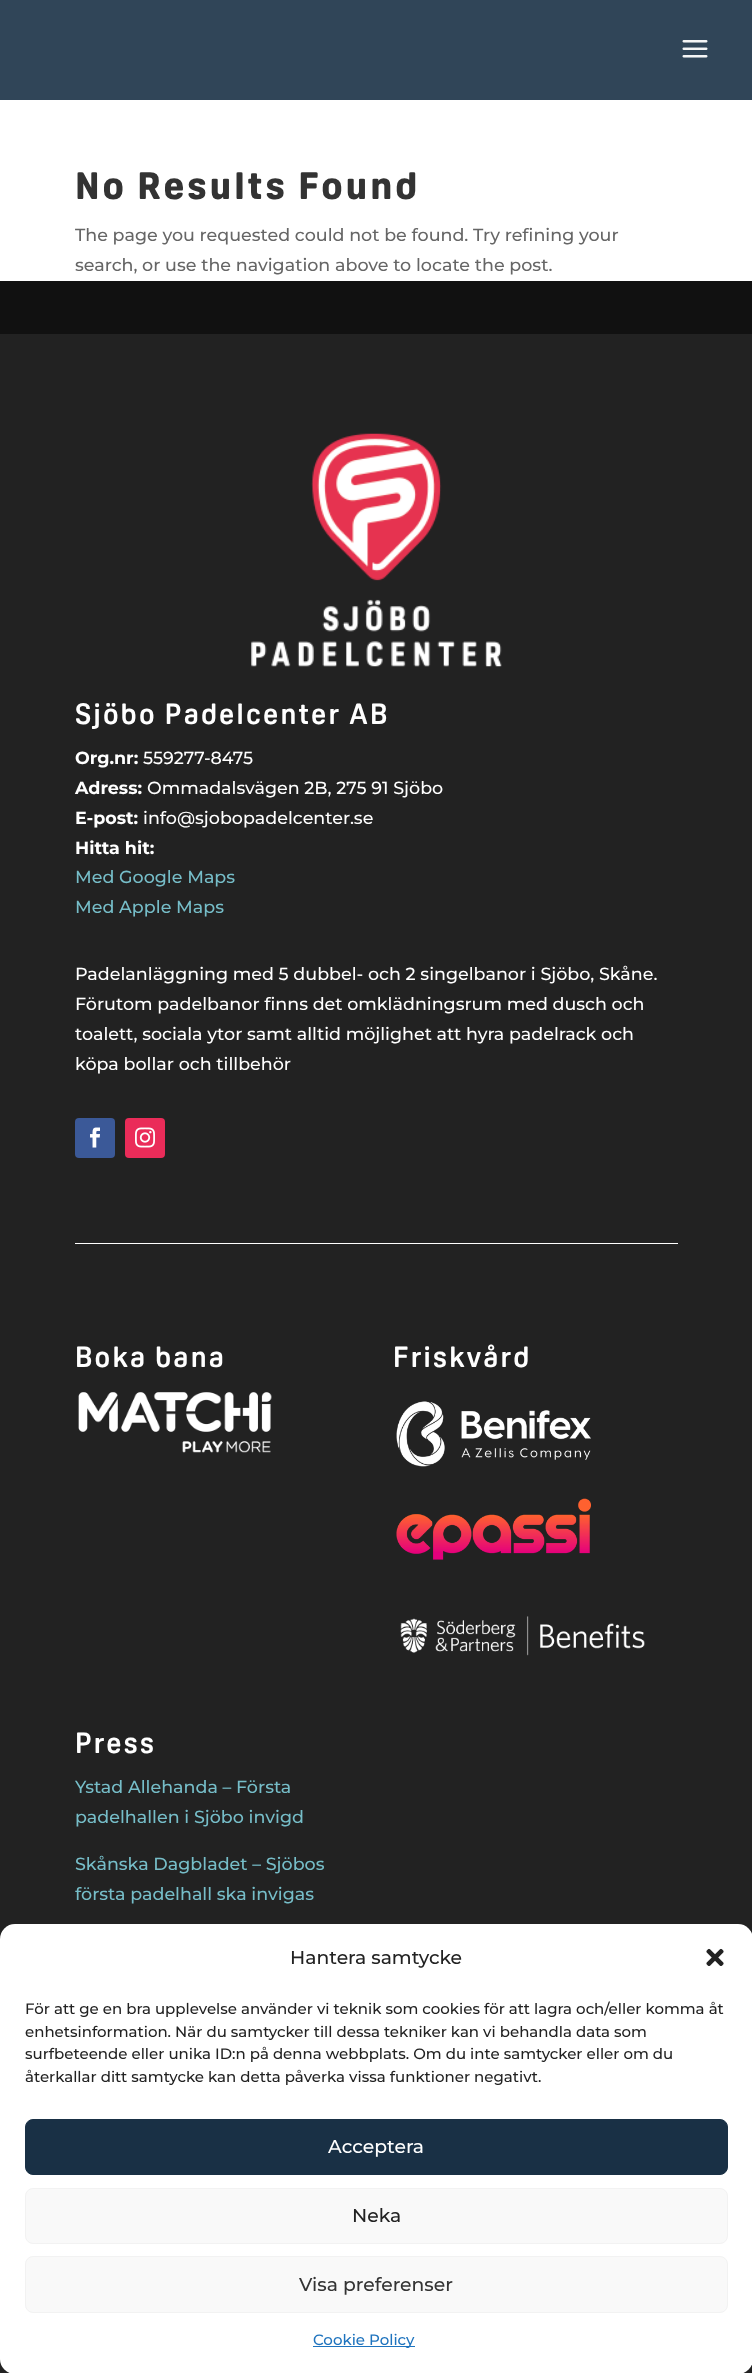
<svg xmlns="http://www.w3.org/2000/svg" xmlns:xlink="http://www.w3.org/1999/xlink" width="752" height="2373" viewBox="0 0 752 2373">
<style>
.cls-1{font:bold 37.5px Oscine;letter-spacing:3px;fill:#333333}
.cls-2{font:100 17.5px Montserrat;fill:#666666}
.cls-3{font:bold 28.75px 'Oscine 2';letter-spacing:2.25px;fill:#ffffff}
.cls-4{font:100 17.5px 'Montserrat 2';fill:#ffffff}
.cls-5{font:100 17.5px Montserrat;fill:#ffffff}
.cls-6{font:100 17.5px Montserrat;fill:#76bdc8}
.cls-7{font:100 18.75px Montserrat;fill:#222222}
.cls-8{font:100 15px Montserrat;fill:#222222}
.cls-9{font:100 18.75px Montserrat;fill:#ffffff}
.cls-10{font:100 18.75px Montserrat;fill:#333333}
.cls-11{font:100 15px Montserrat;fill:#1e73be}
</style>
<rect width="100%" height="100%" fill="#111111"/>
<rect fill="#304558" x="0" y="0" width="752" height="100"/>
<image xlink:href="image0.png" x="682" y="40" width="26" height="18"/>
<rect fill="#ffffff" x="0" y="100" width="752" height="181"/>
<rect fill="#222222" x="0" y="334" width="752" height="2039"/>
<image xlink:href="image1.png" x="251" y="433" width="251" height="234"/>
<rect fill="#3b5998" x="75" y="1118" width="40" height="40" rx="4"/>
<image xlink:href="image2.png" x="90" y="1127" width="10" height="21"/>
<rect fill="#ea2c59" x="125" y="1118" width="40" height="40" rx="4"/>
<image xlink:href="image3.png" x="135" y="1127" width="20" height="21"/>
<rect fill="#ffffff" x="75" y="1243" width="603" height="1"/>
<image xlink:href="image4.png" x="78" y="1392" width="194" height="61"/>
<image xlink:href="image5.png" x="396" y="1401" width="195" height="66"/>
<image xlink:href="image6.png" x="396" y="1498" width="195" height="62"/>
<image xlink:href="image7.png" x="400" y="1616" width="245" height="40"/>
<rect fill="#ffffff" x="0" y="1924" width="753" height="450" rx="15"/>
<image xlink:href="image8.png" x="706" y="1948" width="18" height="18"/>
<rect fill="#193045" stroke="#193045" x="25.5" y="2119.5" width="702" height="55" rx="7.5"/>
<rect fill="#f9f9f9" stroke="#f2f2f2" x="25.5" y="2188.5" width="702" height="55" rx="7.5"/>
<rect fill="#f9f9f9" stroke="#f2f2f2" x="25.5" y="2256.5" width="702" height="56" rx="7.5"/>
<rect fill="#1e73be" x="313" y="2346" width="102" height="1"/>
<text class="cls-1" x="75" y="199">No Results Found</text>
<text class="cls-2"><tspan x="75" y="241">The page you requested could not be found. Try refining your</tspan><tspan x="75" y="271">search, or use the navigation above to locate the post.</tspan></text>
<text class="cls-3" x="75" y="724">Sjöbo Padelcenter AB</text>
<text class="cls-4" x="75" y="764">Org.nr:</text>
<text class="cls-5" x="143" y="764">559277-8475</text>
<text class="cls-4" x="75" y="794">Adress:</text>
<text class="cls-5" x="147" y="794">Ommadalsvägen 2B, 275 91 Sjöbo</text>
<text class="cls-4" x="75" y="824">E-post:</text>
<text class="cls-5" x="143" y="824">info@sjobopadelcenter.se</text>
<text class="cls-4" x="75" y="854">Hitta hit:</text>
<text class="cls-6"><tspan x="75" y="883">Med Google Maps</tspan><tspan x="75" y="913">Med Apple Maps</tspan></text>
<text class="cls-5"><tspan x="75" y="980">Padelanläggning med 5 dubbel- och 2 singelbanor i Sjöbo, Skåne.</tspan><tspan x="75" y="1010">Förutom padelbanor finns det omklädningsrum med dusch och</tspan><tspan x="75" y="1040">toalett, sociala ytor samt alltid möjlighet att hyra padelrack och</tspan><tspan x="75" y="1070">köpa bollar och tillbehör</tspan></text>
<text class="cls-3" x="75" y="1367">Boka bana</text>
<text class="cls-3" x="393" y="1367">Friskvård</text>
<text class="cls-3" x="75" y="1753">Press</text>
<text class="cls-6"><tspan x="75" y="1793">Ystad Allehanda – Första</tspan><tspan x="75" y="1823">padelhallen i Sjöbo invigd</tspan></text>
<text class="cls-6"><tspan x="75" y="1870">Skånska Dagbladet – Sjöbos</tspan><tspan x="75" y="1900">första padelhall ska invigas</tspan></text>
<text class="cls-7" x="290" y="1964">Hantera samtycke</text>
<text class="cls-8"><tspan x="25" y="2014">För att ge en bra upplevelse använder vi teknik som cookies för att lagra och/eller komma åt</tspan><tspan x="25" y="2037">enhetsinformation. När du samtycker till dessa tekniker kan vi behandla data som</tspan><tspan x="25" y="2059">surfbeteende eller unika ID:n på denna webbplats. Om du inte samtycker eller om du</tspan><tspan x="25" y="2082">återkallar ditt samtycke kan detta påverka vissa funktioner negativt.</tspan></text>
<text class="cls-9" x="328" y="2153">Acceptera</text>
<text class="cls-7" x="352" y="2222">Neka</text>
<text class="cls-10" x="299" y="2291">Visa preferenser</text>
<text class="cls-11" x="313" y="2345">Cookie Policy</text>
</svg>
